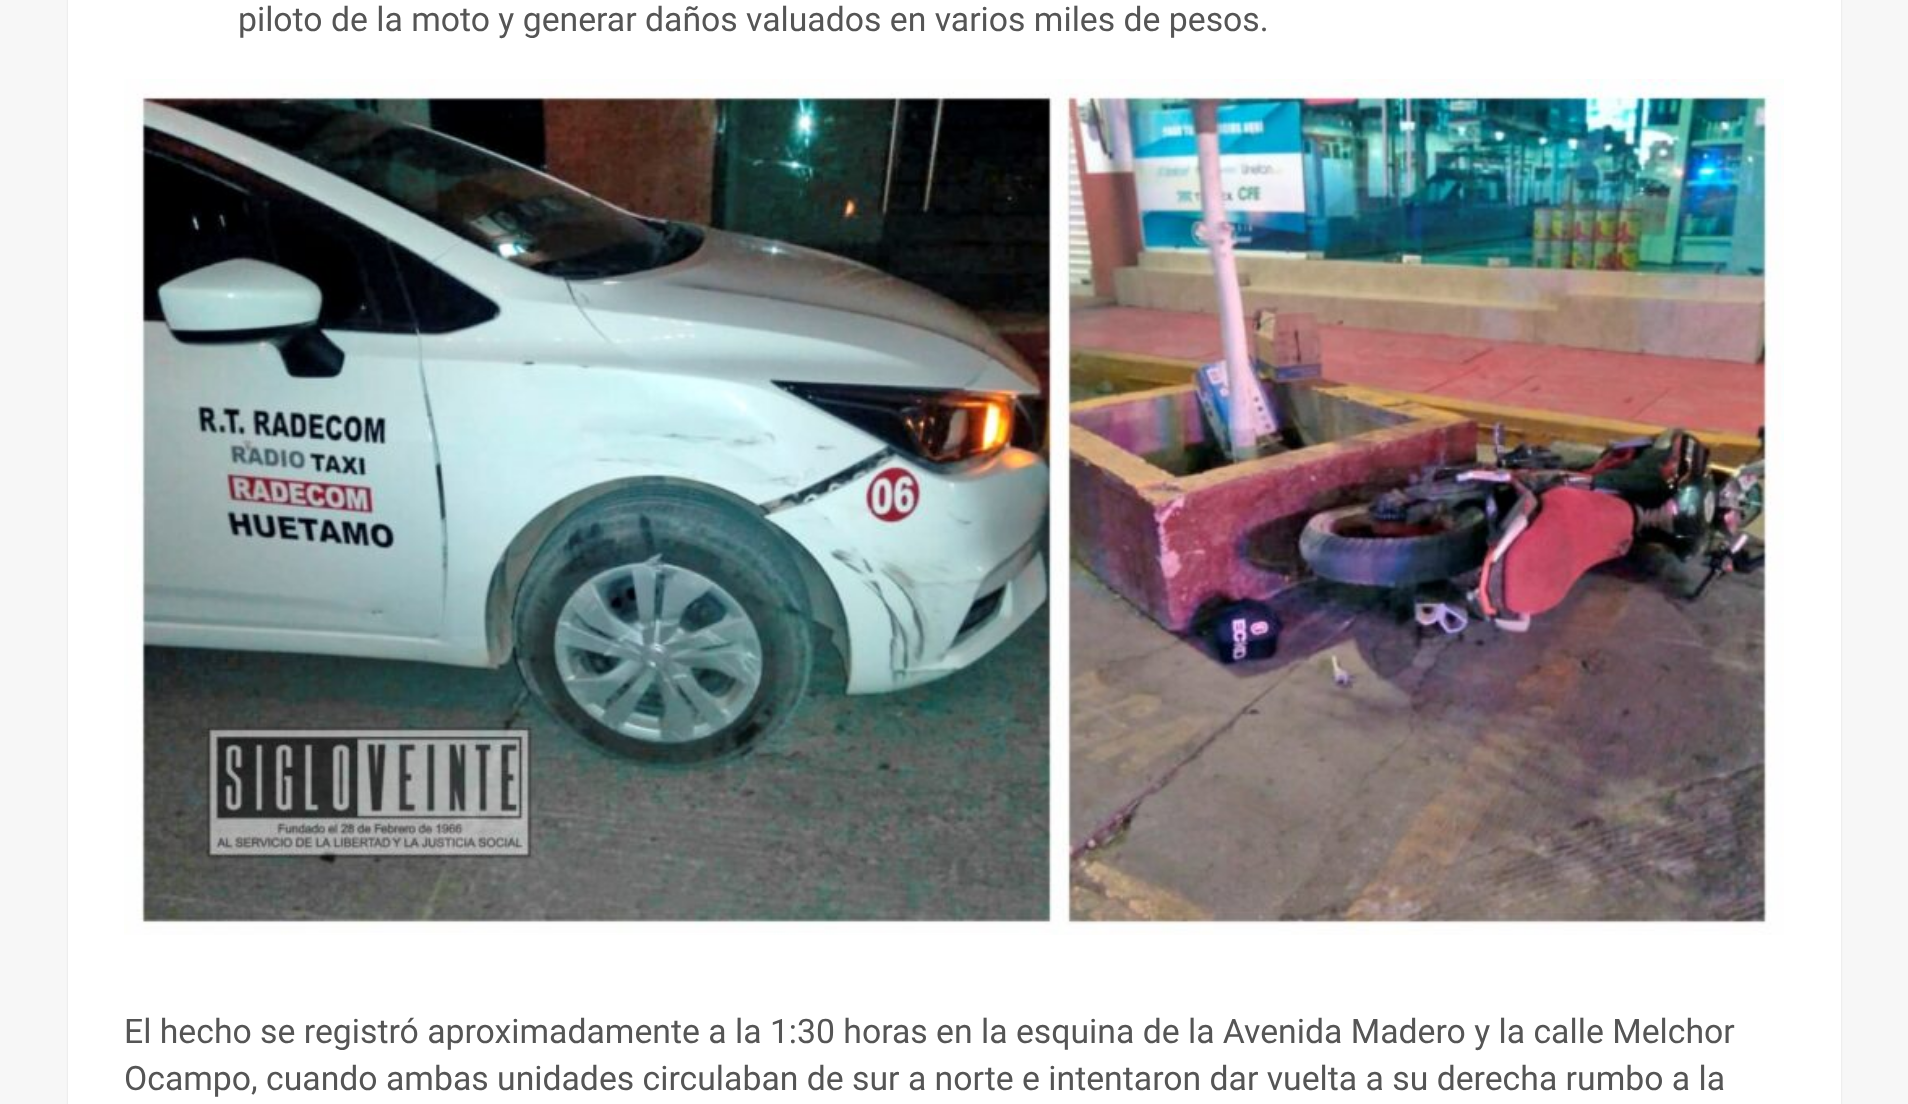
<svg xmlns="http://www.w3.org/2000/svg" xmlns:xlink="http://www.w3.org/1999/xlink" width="1908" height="1104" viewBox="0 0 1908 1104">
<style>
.cls-1{font:33.75px Roboto;fill:#555555}
</style>
<rect width="100%" height="100%" fill="#f7f7f7"/>
<rect fill="#000000" fill-opacity="0.1" filter="blur(1px)" x="68" y="-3" width="1773" height="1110"/>
<rect fill="#ffffff" x="68" y="0" width="1773" height="1104"/>
<image xlink:href="image0.png" x="124" y="79" width="1660" height="856"/>
<text class="cls-1" x="238" y="31">piloto de la moto y generar daños valuados en varios miles de pesos.</text>
<text class="cls-1"><tspan x="124" y="1043">El hecho se registró aproximadamente a la 1:30 horas en la esquina de la Avenida Madero y la calle Melchor</tspan><tspan x="124" y="1090">Ocampo, cuando ambas unidades circulaban de sur a norte e intentaron dar vuelta a su derecha rumbo a la</tspan></text>
</svg>
